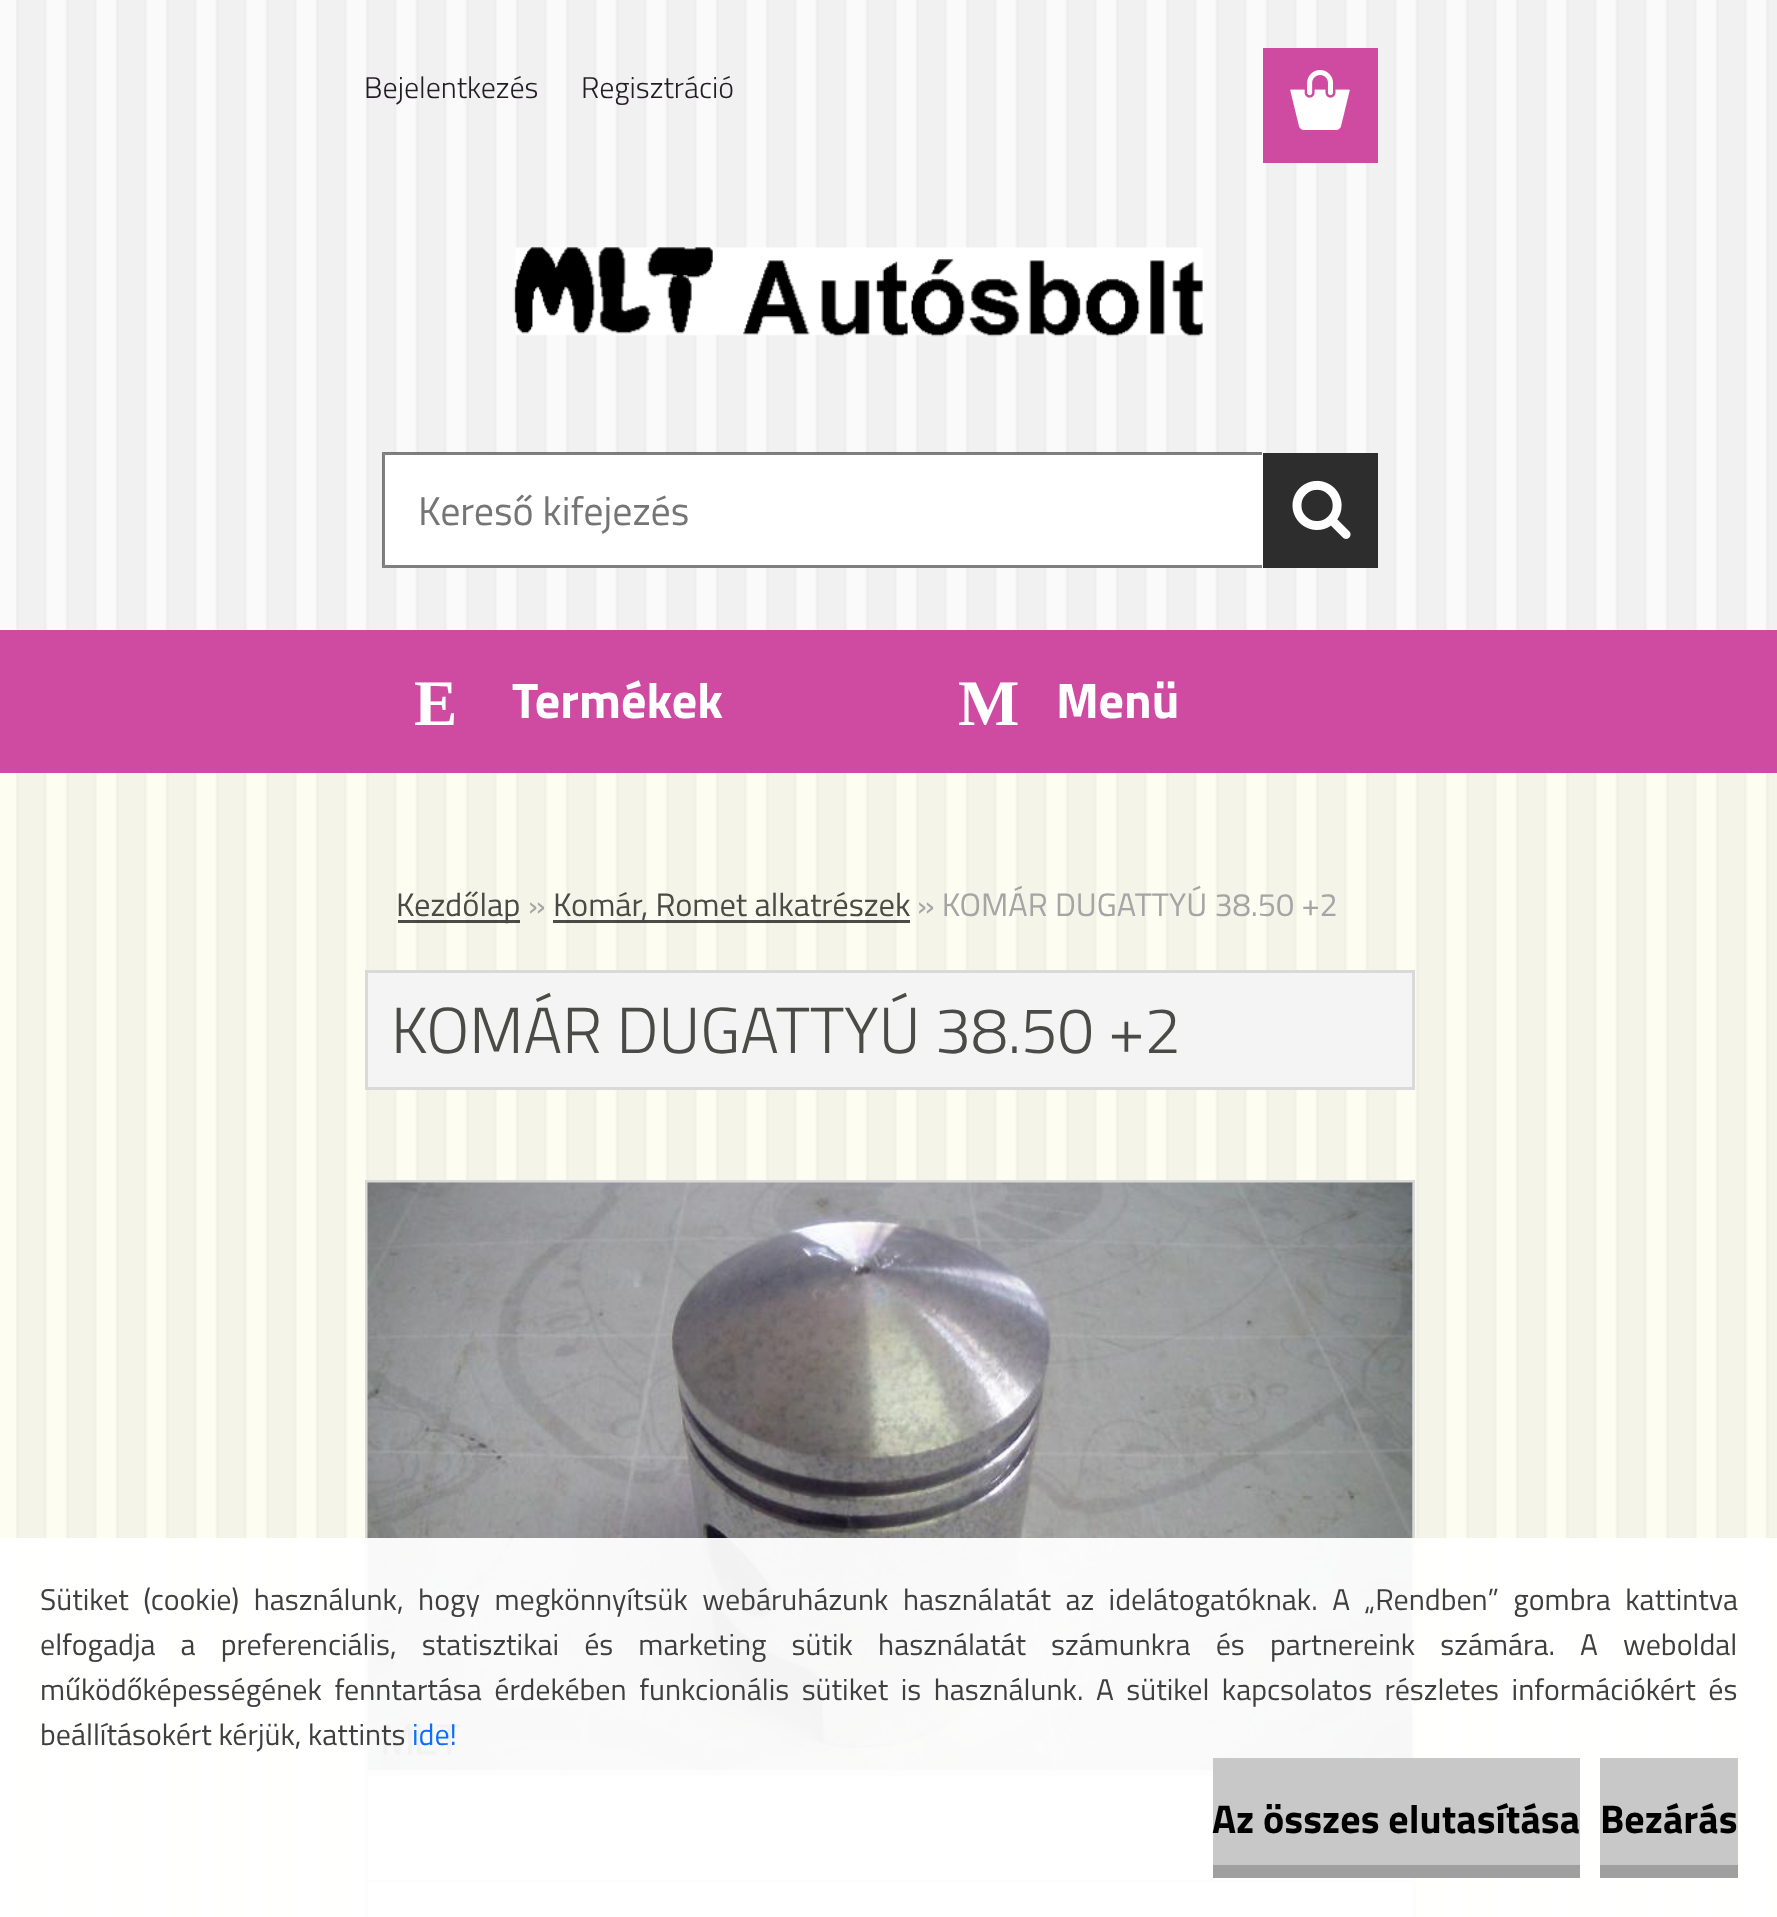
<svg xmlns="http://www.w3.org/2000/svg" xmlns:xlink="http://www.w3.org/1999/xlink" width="1777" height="1917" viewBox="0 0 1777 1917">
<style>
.cls-1{font:300 30px Titillium Web;fill:#231c24}
.cls-2{font:bold 65px Liberation Serif;fill:#ffffff}
.cls-3{font:bold 50px Titillium Web;fill:#ffffff}
.cls-4{font:32.5px Titillium Web;fill:#4a4a47}
.cls-5{font:32.5px Titillium Web;fill:#a5a5a5}
.cls-6{font:300 65px Titillium Web;fill:#4a4a47}
.cls-7{font:40px Titillium Web;fill:#757575}
.cls-8{font:30px Titillium Web;fill:#3f3f3f}
.cls-9{font:30px Titillium Web;fill:#0d6efd}
.cls-10{font:bold 40px Titillium Web;fill:#000000}
</style>
<rect width="100%" height="100%" fill="#fafafa"/>
<rect fill="#fdfdf2" x="0" y="773" width="1777" height="1144"/>
<image xlink:href="image0.png" x="16" y="773" width="1761" height="1144"/>
<image xlink:href="image3.png" x="16" y="0" width="1761" height="630"/>
<rect fill="#cf4ba2" x="1263" y="48" width="115" height="115"/>
<image xlink:href="image1.png" x="1290" y="70" width="60" height="60"/>
<rect fill="#000000" fill-opacity="0.7" x="398" y="920" width="122" height="3"/>
<rect fill="#000000" fill-opacity="0.7" x="553" y="920" width="357" height="3"/>
<rect fill="#f4f4f4" stroke="#d9d9d9" stroke-width="3" x="366.5" y="971.5" width="1047" height="117"/>
<rect fill="none" stroke="#d9d9d9" stroke-width="3" x="366.5" y="1181.5" width="1047" height="590"/>
<rect fill="#ffffff" x="1412" y="1183" width="1" height="575"/>
<image xlink:href="image2.png" x="367" y="1182" width="1046" height="588"/>
<rect fill="#d9d9d9" x="365" y="1773" width="848" height="3"/>
<rect fill="#d9d9d9" x="1413" y="1878" width="3" height="39"/>
<rect fill="#d9d9d9" x="365" y="1773" width="3" height="144"/>
<rect fill="#f4f4f4" x="368" y="1776" width="1045" height="104"/>
<rect fill="#f4f4f4" x="368" y="1883" width="1045" height="34"/>
<rect fill="#d9d9d9" x="365" y="1880" width="1050" height="3"/>
<path fill="#cf4ba2" d="M0 630V773H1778V143V630Z"/>
<image xlink:href="image4.png" x="513" y="247" width="690" height="90"/>
<rect fill="#ffffff" x="383" y="453" width="880" height="115"/>
<path fill="#000000" fill-opacity="0.5" d="M382 452H1262V455H385Z"/>
<path fill="#000000" fill-opacity="0.5" d="M1262 568H382L385 565H1262Z"/>
<path fill="#000000" fill-opacity="0.5" d="M382 568V452L385 455V565Z"/>
<rect fill="#2d2d2d" x="1263" y="453" width="115" height="115"/>
<image xlink:href="image5.png" x="1292" y="480" width="59" height="59"/>
<rect fill="#ffffff" fill-opacity="0.95" x="0" y="1538" width="1777" height="379"/>
<rect fill="#c8c8c8" x="1213" y="1758" width="367" height="107"/>
<rect fill="#a0a0a0" x="1213" y="1865" width="367" height="13"/>
<rect fill="#c8c8c8" x="1600" y="1758" width="138" height="107"/>
<rect fill="#a0a0a0" x="1600" y="1865" width="138" height="13"/>
<text class="cls-1" x="364" y="98">Bejelentkezés</text>
<text class="cls-1" x="581" y="98">Regisztráció</text>
<text class="cls-2" x="414" y="725">E</text>
<text class="cls-3" x="512" y="718">Termékek</text>
<text class="cls-2" x="958" y="725">M</text>
<text class="cls-3" x="1056" y="718">Menü</text>
<text class="cls-4" x="396" y="916">Kezdőlap</text>
<text class="cls-5" x="528" y="916">»</text>
<text class="cls-4" x="553" y="916">Komár, Romet alkatrészek</text>
<text class="cls-5" x="917" y="916">» KOMÁR DUGATTYÚ 38.50 +2</text>
<text class="cls-6" x="391" y="1053">KOMÁR DUGATTYÚ 38.50 +2</text>
<text class="cls-7" x="418" y="525">Kereső kifejezés</text>
<text class="cls-8"><tspan x="40" y="1610" word-spacing="7.9">Sütiket (cookie) használunk, hogy megkönnyítsük webáruházunk használatát az idelátogatóknak. A „Rendben” gombra kattintva</tspan><tspan x="40" y="1655" word-spacing="18.5">elfogadja a preferenciális, statisztikai és marketing sütik használatát számunkra és partnereink számára. A weboldal</tspan><tspan x="40" y="1700" word-spacing="5.9">működőképességének fenntartása érdekében funkcionális sütiket is használunk. A sütikel kapcsolatos részletes információkért és</tspan><tspan x="40" y="1745">beállításokért kérjük, kattints</tspan></text>
<text class="cls-9" x="412" y="1745">ide!</text>
<text class="cls-10" x="1212" y="1833">Az összes elutasítása</text>
<text class="cls-10" x="1600" y="1833">Bezárás</text>
</svg>
